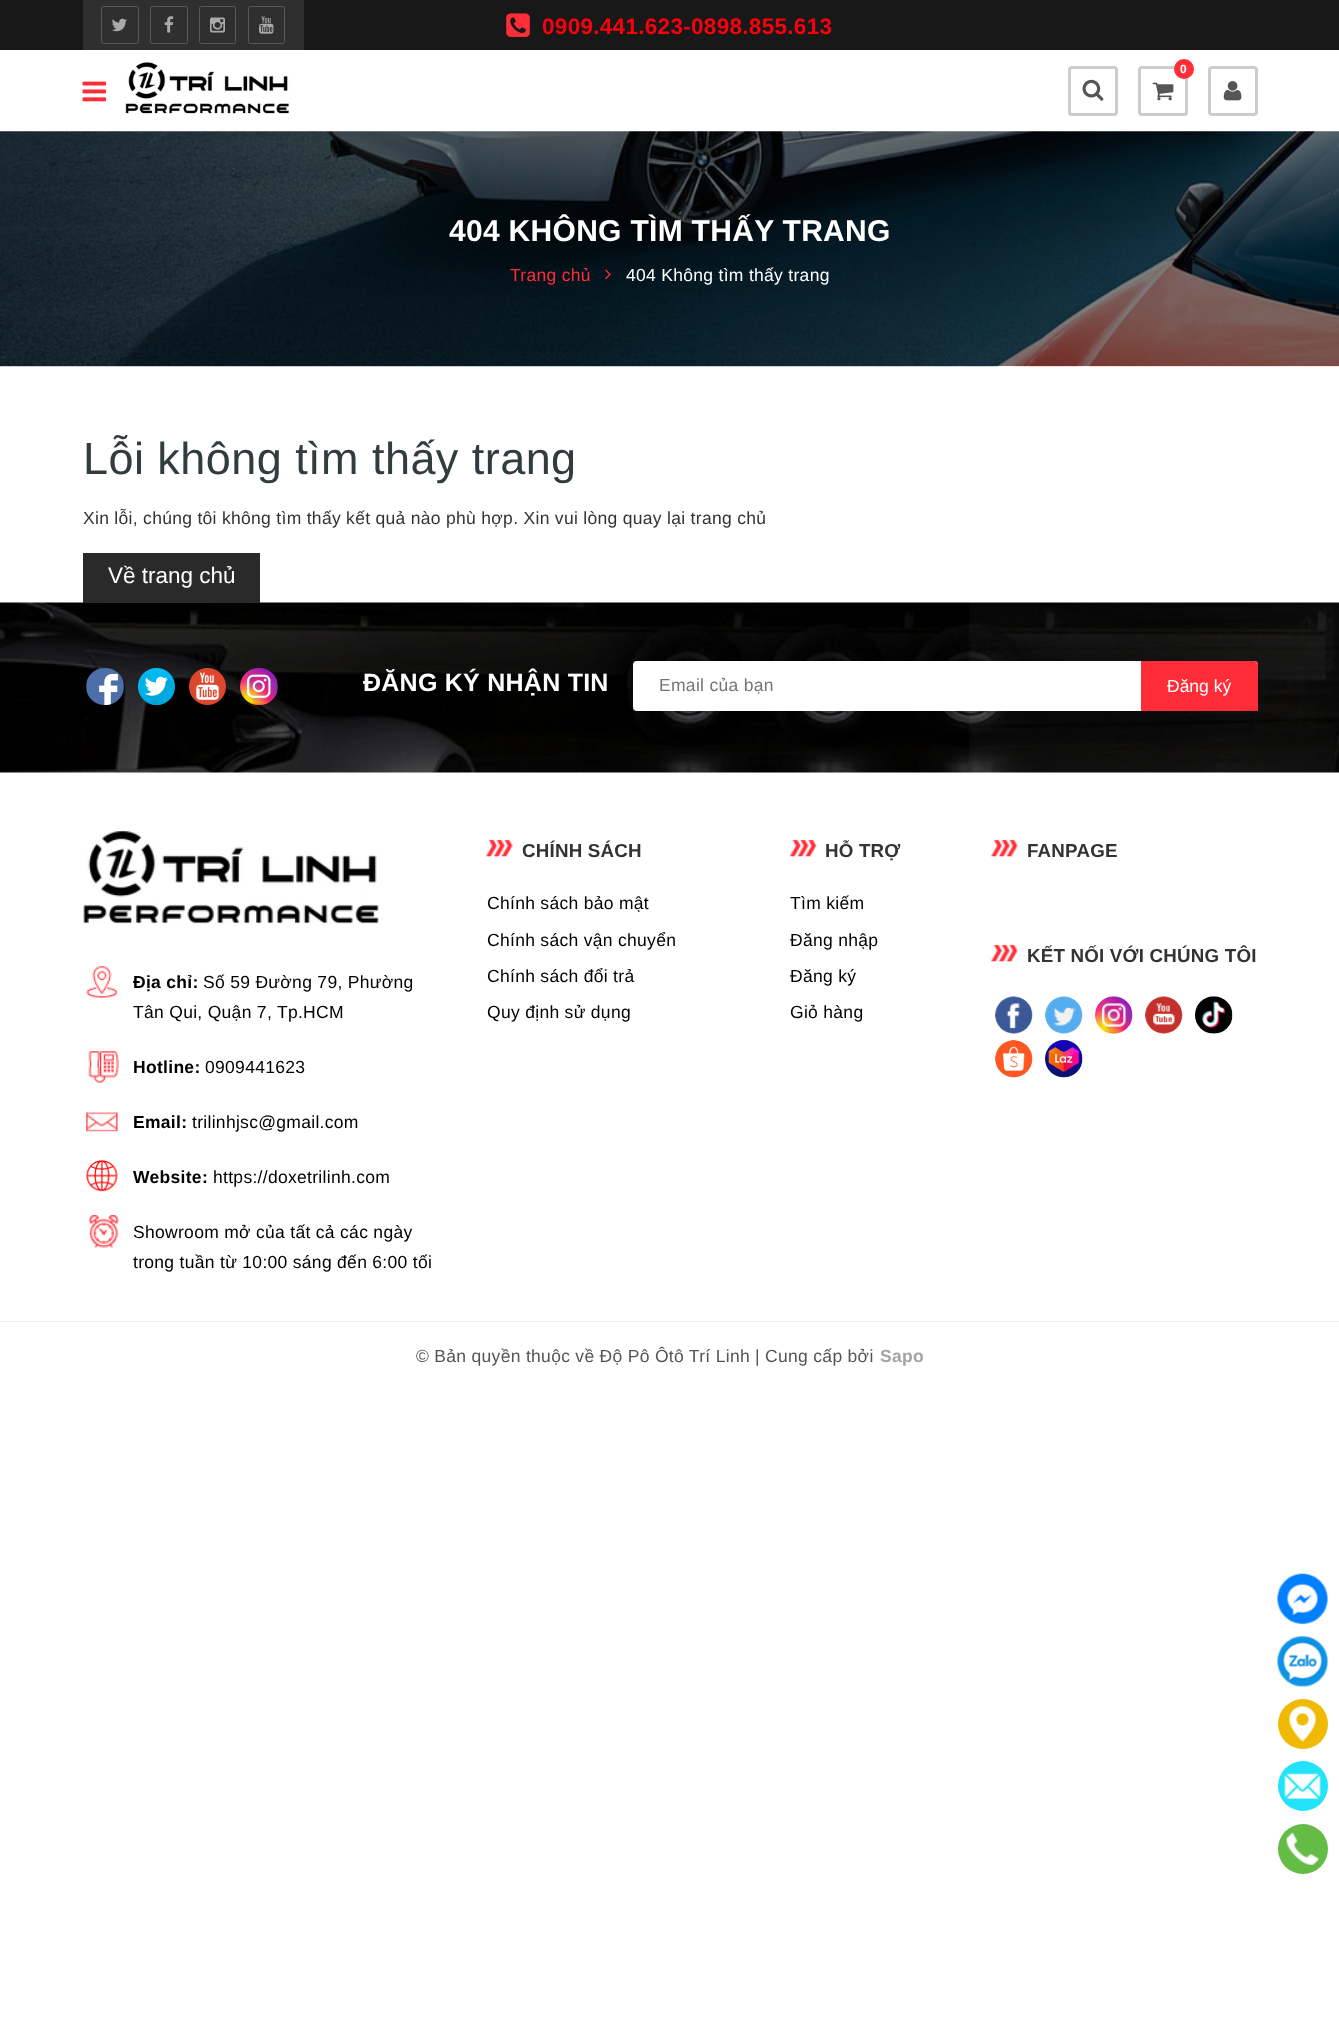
<svg xmlns="http://www.w3.org/2000/svg" xmlns:xlink="http://www.w3.org/1999/xlink" width="1339" height="2036" viewBox="0 0 1339 2036">
<style>
.cls-1{font:bold 22.5px Liberation Sans;letter-spacing:0.3px;fill:#f9000c}
.cls-2{font:bold 12px Liberation Sans;letter-spacing:0.3px;fill:#ffffff}
.cls-3{font:bold 30px Liberation Sans;letter-spacing:0.3px;fill:#ffffff}
.cls-4{font:17.5px Liberation Sans;letter-spacing:0.3px;fill:#ff2d37}
.cls-5{font:17.5px Liberation Sans;letter-spacing:0.3px;fill:#ffffff}
.cls-6{font:45px Liberation Sans;letter-spacing:0.45px;fill:#323c3f}
.cls-7{font:17.5px Liberation Sans;letter-spacing:0.3px;fill:#333333}
.cls-8{font:22.5px Liberation Sans;fill:#ffffff}
.cls-9{font:bold 25px Liberation Sans;letter-spacing:0.25px;fill:#ffffff}
.cls-10{font:17.5px Liberation Sans;letter-spacing:0.3px;fill:#757575}
.cls-11{font:17.5px Liberation Sans;fill:#ffffff}
.cls-12{font:bold 18.75px Liberation Sans;letter-spacing:0.2px;fill:#333333}
.cls-13{font:17.5px Liberation Sans;letter-spacing:0.3px;fill:#000000}
.cls-14{font:bold 17.5px Liberation Sans;letter-spacing:0.3px;fill:#000000}
.cls-15{font:17.5px Liberation Sans;letter-spacing:0.3px;fill:#555555}
.cls-16{font:bold 17.5px Liberation Sans;letter-spacing:0.3px;fill:#a4a4a4}
</style>
<rect width="100%" height="100%" fill="#ffffff"/>
<rect fill="#181818" x="0" y="0" width="1339" height="50"/>
<rect fill="#2f2f2f" x="83" y="0" width="221" height="50"/>
<rect fill="none" stroke="#595959" x="101.5" y="6.5" width="37" height="37" rx="2"/>
<image xlink:href="image0.png" x="112" y="18" width="15" height="14"/>
<rect fill="none" stroke="#595959" x="150.5" y="6.5" width="37" height="37" rx="2"/>
<image xlink:href="image1.png" x="164" y="16" width="10" height="17"/>
<rect fill="none" stroke="#595959" x="199.5" y="6.5" width="36" height="37" rx="2"/>
<image xlink:href="image2.png" x="210" y="17" width="15" height="16"/>
<rect fill="none" stroke="#595959" x="248.5" y="6.5" width="36" height="37" rx="2"/>
<image xlink:href="image3.png" x="259" y="16" width="15" height="18"/>
<image xlink:href="image4.png" x="506" y="13" width="24" height="24"/>
<image xlink:href="image5.png" x="125" y="62" width="165" height="52"/>
<rect fill="none" stroke="#cccccc" stroke-width="3" x="1069.5" y="67.5" width="47" height="47" rx="2.5"/>
<image xlink:href="image6.png" x="1082" y="79" width="22" height="22"/>
<rect fill="none" stroke="#cccccc" stroke-width="3" x="1139.5" y="67.5" width="47" height="47" rx="2.5"/>
<circle fill="#ff2d37" cx="1184" cy="69" r="10"/>
<image xlink:href="image7.png" x="1152" y="82" width="22" height="19"/>
<rect fill="none" stroke="#cccccc" stroke-width="3" x="1209.5" y="67.5" width="47" height="47" rx="2.5"/>
<image xlink:href="image8.png" x="1223" y="81" width="19" height="20"/>
<image xlink:href="image9.png" x="82" y="81" width="25" height="21"/>
<image xlink:href="image10.png" x="0" y="131" width="1339" height="236"/>
<image xlink:href="image11.png" x="605" y="269" width="6" height="11"/>
<image xlink:href="image12.png" x="0" y="602" width="1339" height="171"/>
<rect fill="#2a2a2a" x="83" y="553" width="177" height="50"/>
<image xlink:href="image13.png" x="86" y="668" width="38" height="37"/>
<image xlink:href="image14.png" x="138" y="668" width="37" height="37"/>
<image xlink:href="image15.png" x="189" y="668" width="37" height="37"/>
<image xlink:href="image16.png" x="240" y="668" width="38" height="37"/>
<rect fill="#ffffff" x="633" y="661" width="625" height="50" rx="4"/>
<path fill="#ff2d37" stroke="#ff2d37" d="M1141.5 661.5H1254C1256 661.5 1257.5 663 1257.5 665V710.5H1141.5Z"/>
<image xlink:href="image17.png" x="486" y="839" width="27" height="18"/>
<image xlink:href="image18.png" x="790" y="839" width="27" height="18"/>
<image xlink:href="image19.png" x="991" y="839" width="27" height="18"/>
<image xlink:href="image19.png" x="991" y="944" width="27" height="18"/>
<image xlink:href="image20.png" x="995" y="996" width="38" height="38"/>
<image xlink:href="image21.png" x="1045" y="996" width="38" height="38"/>
<image xlink:href="image22.png" x="1095" y="996" width="38" height="38"/>
<image xlink:href="image23.png" x="1145" y="996" width="38" height="38"/>
<image xlink:href="image24.png" x="1195" y="996" width="38" height="38"/>
<image xlink:href="image25.png" x="995" y="1040" width="38" height="38"/>
<image xlink:href="image26.png" x="1045" y="1040" width="38" height="38"/>
<image xlink:href="image27.png" x="83" y="831" width="296" height="93"/>
<image xlink:href="image28.png" x="86" y="966" width="32" height="32"/>
<image xlink:href="image29.png" x="88" y="1051" width="31" height="32"/>
<image xlink:href="image30.png" x="86" y="1112" width="32" height="20"/>
<image xlink:href="image31.png" x="86" y="1160" width="32" height="32"/>
<image xlink:href="image32.png" x="88" y="1215" width="31" height="33"/>
<rect fill="#eeeeee" x="0" y="1321" width="1339" height="1"/>
<image xlink:href="image33.png" x="1277" y="1573" width="51" height="51"/>
<image xlink:href="image34.png" x="1277" y="1635" width="51" height="52"/>
<circle fill="#f0b902" cx="1303" cy="1724" r="25"/>
<image xlink:href="image35.png" x="1289" y="1705" width="27" height="37"/>
<circle fill="#22e3f9" cx="1303" cy="1786" r="25"/>
<image xlink:href="image36.png" x="1284" y="1773" width="37" height="26"/>
<circle fill="#64bc46" cx="1303" cy="1849" r="25"/>
<image xlink:href="image37.png" x="1286" y="1832" width="33" height="33"/>
<text class="cls-1" x="542" y="34">0909.441.623-0898.855.613</text>
<text class="cls-2" x="1180" y="73">0</text>
<text class="cls-3" x="449" y="241">404 KHÔNG TÌM THẤY TRANG</text>
<text class="cls-4" x="510" y="281">Trang chủ</text>
<text class="cls-5" x="626" y="281">404 Không tìm thấy trang</text>
<text class="cls-6" x="83" y="474">Lỗi không tìm thấy trang</text>
<text class="cls-7" x="83" y="524">Xin lỗi, chúng tôi không tìm thấy kết quả nào phù hợp. Xin vui lòng quay lại trang chủ</text>
<text class="cls-8" x="108" y="583">Về trang chủ</text>
<text class="cls-9" x="363" y="691">ĐĂNG KÝ NHẬN TIN</text>
<text class="cls-10" x="659" y="691">Email của bạn</text>
<text class="cls-11" x="1167" y="692">Đăng ký</text>
<text class="cls-12" x="522" y="857">CHÍNH SÁCH</text>
<text class="cls-13" x="487" y="909">Chính sách bảo mật</text>
<text class="cls-13" x="487" y="946">Chính sách vận chuyển</text>
<text class="cls-13" x="487" y="982">Chính sách đổi trả</text>
<text class="cls-13" x="487" y="1018">Quy định sử dụng</text>
<text class="cls-12" x="825" y="857">HỖ TRỢ</text>
<text class="cls-13" x="790" y="909">Tìm kiếm</text>
<text class="cls-13" x="790" y="946">Đăng nhập</text>
<text class="cls-13" x="790" y="982">Đăng ký</text>
<text class="cls-13" x="790" y="1018">Giỏ hàng</text>
<text class="cls-12" x="1027" y="857">FANPAGE</text>
<text class="cls-12" x="1027" y="962">KẾT NỐI VỚI CHÚNG TÔI</text>
<text class="cls-14" x="133" y="988">Địa chỉ:</text>
<text class="cls-13" x="203" y="988">Số 59 Đường 79, Phường</text>
<text class="cls-13" x="133" y="1018">Tân Qui, Quận 7, Tp.HCM</text>
<text class="cls-14" x="133" y="1073">Hotline:</text>
<text class="cls-13" x="205" y="1073">0909441623</text>
<text class="cls-14" x="133" y="1128">Email:</text>
<text class="cls-13" x="192" y="1128">trilinhjsc@gmail.com</text>
<text class="cls-14" x="133" y="1183">Website:</text>
<text class="cls-13" x="213" y="1183">https://doxetrilinh.com</text>
<text class="cls-13"><tspan x="133" y="1238">Showroom mở của tất cả các ngày</tspan><tspan x="133" y="1268">trong tuần từ 10:00 sáng đến 6:00 tối</tspan></text>
<text class="cls-15" x="416" y="1362">© Bản quyền thuộc về Độ Pô Ôtô Trí Linh | Cung cấp bởi</text>
<text class="cls-16" x="880" y="1362">Sapo</text>
</svg>
